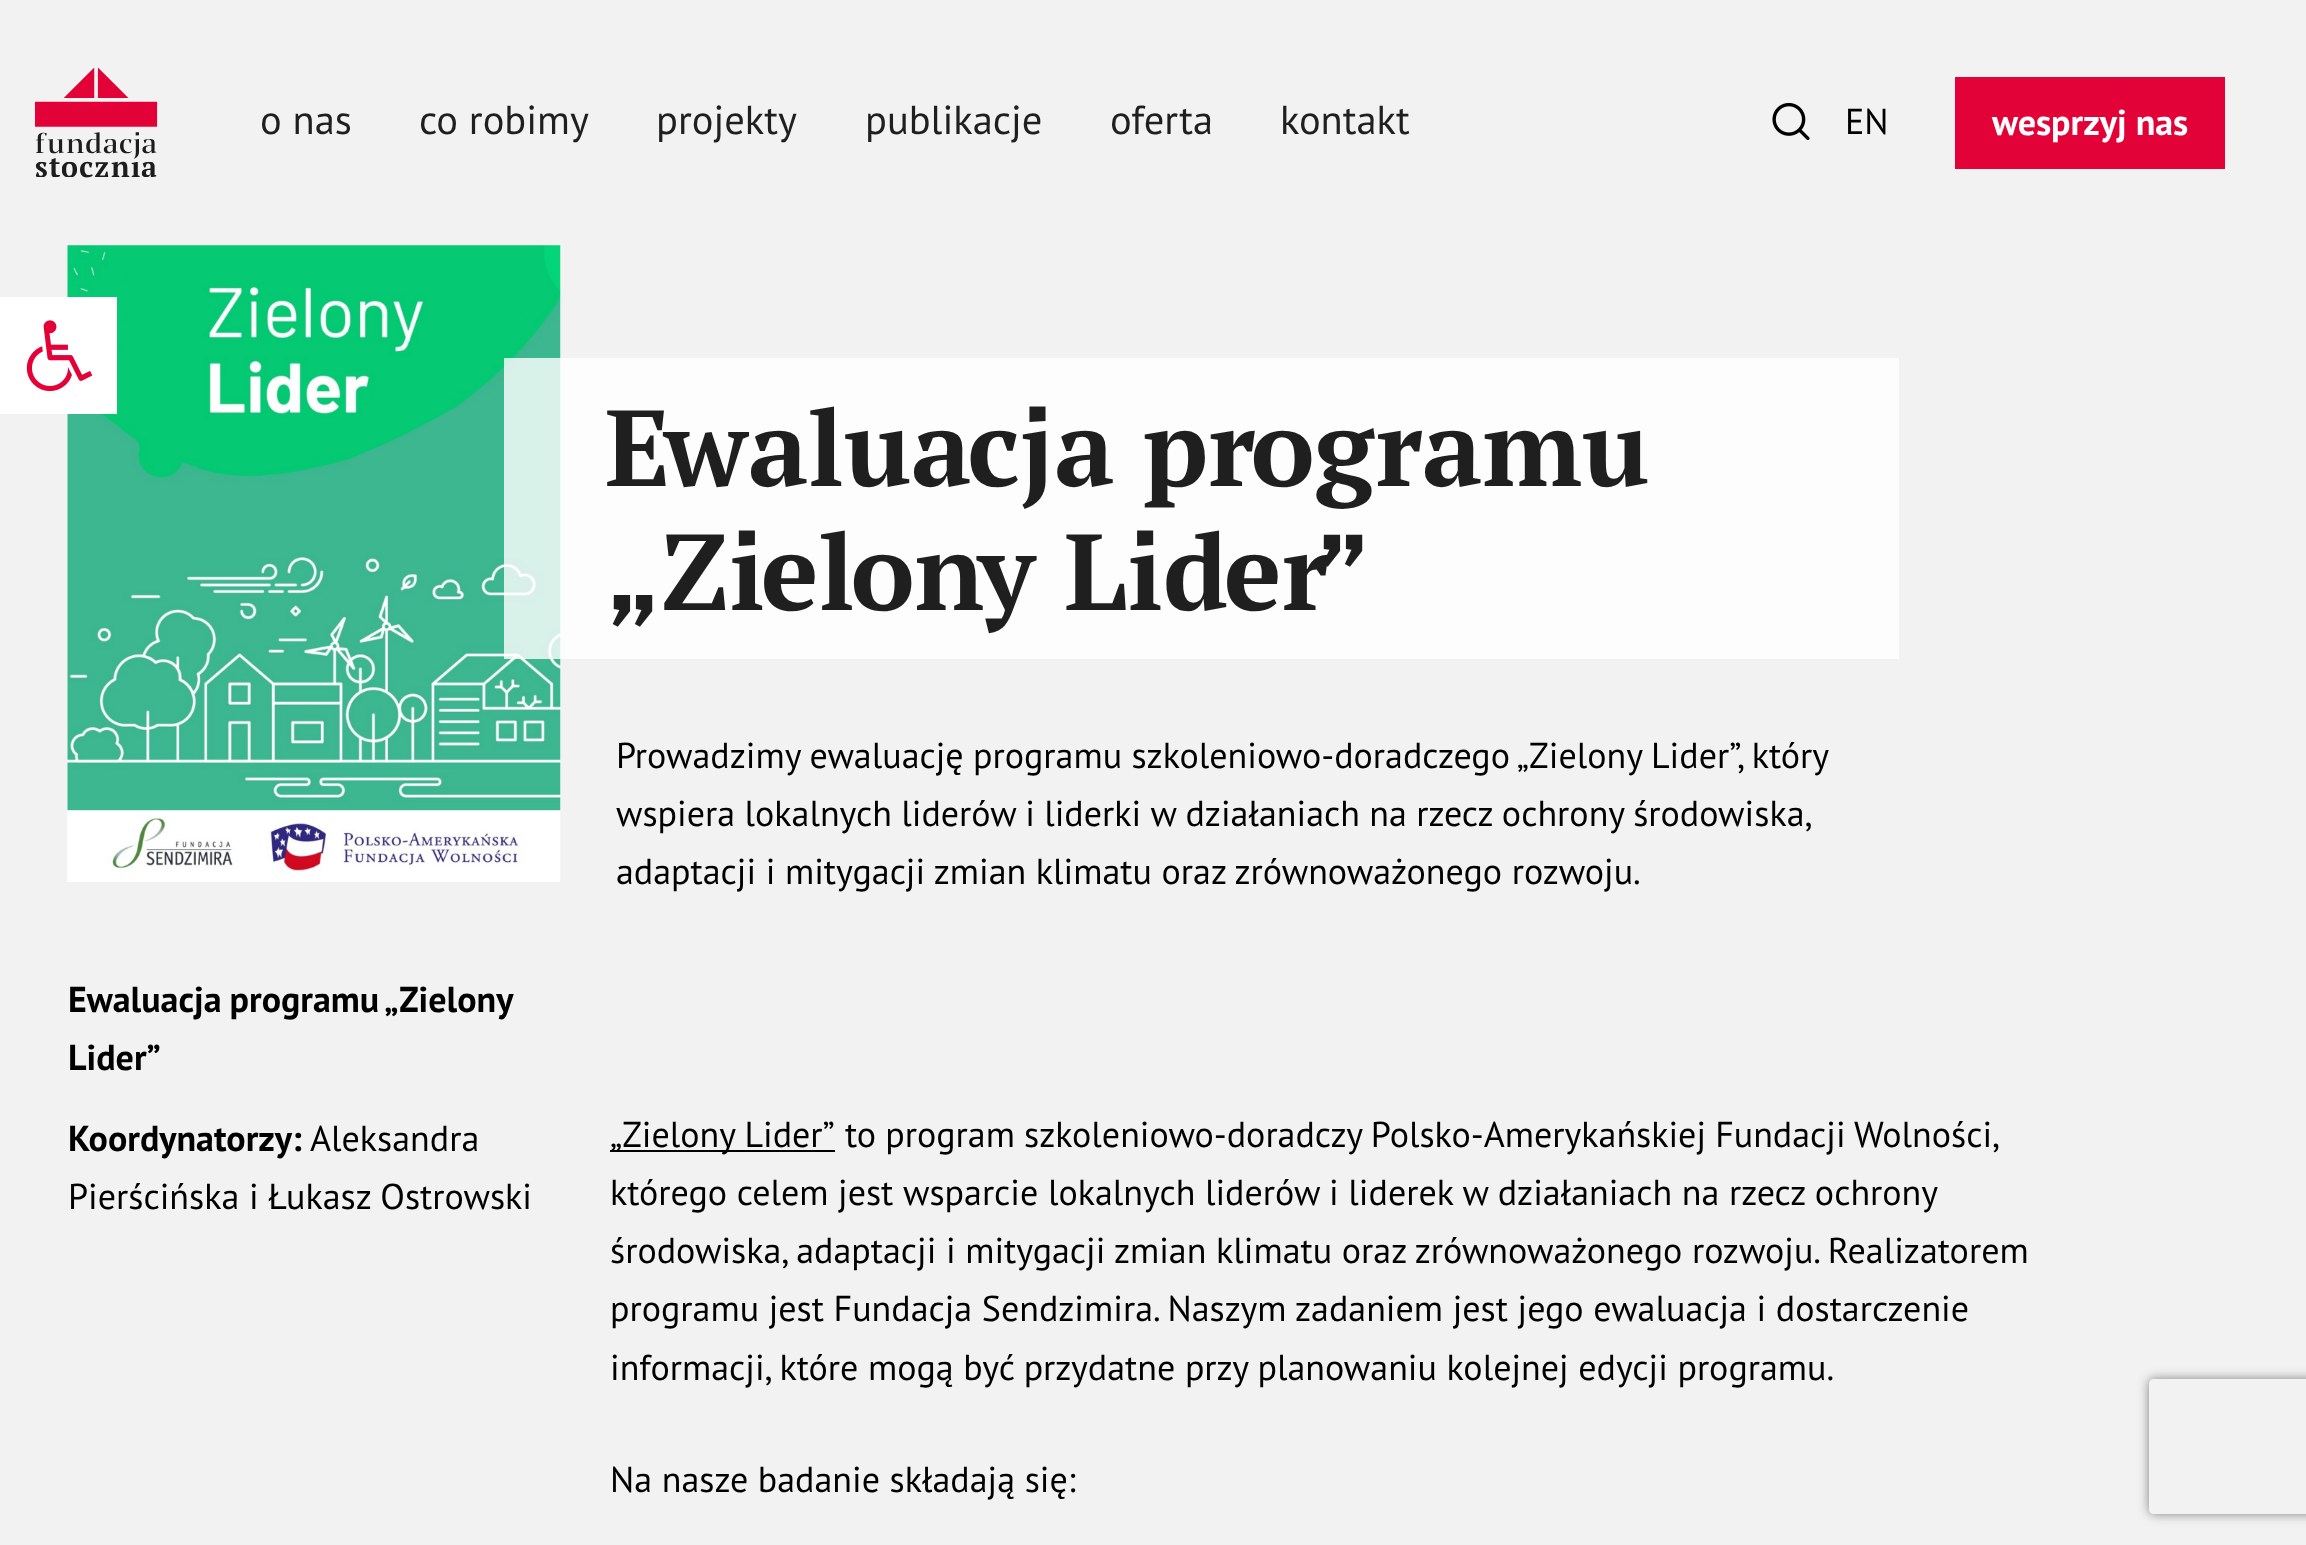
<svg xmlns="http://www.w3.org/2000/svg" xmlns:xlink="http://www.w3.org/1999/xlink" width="2306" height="1545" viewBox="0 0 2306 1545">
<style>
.cls-1{font:40.5px PT Sans;fill:#1f1f1f}
.cls-2{font:36px PT Sans;fill:#000000}
.cls-3{font:bold 36px PT Sans;fill:#ffffff}
.cls-4{font:bold 108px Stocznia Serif;fill:#1f1f1f}
.cls-5{font:bold 36px PT Sans;fill:#000000}
</style>
<defs>
<clipPath id="clip1"><path d="M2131 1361H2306V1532H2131ZM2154 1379H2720C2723 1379 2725 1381 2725 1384V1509C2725 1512 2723 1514 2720 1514H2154C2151 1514 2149 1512 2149 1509V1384C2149 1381 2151 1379 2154 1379Z" clip-rule="evenodd"/></clipPath>
</defs>
<rect width="100%" height="100%" fill="#f2f2f2"/>
<image xlink:href="image0.png" x="35" y="67" width="123" height="111"/>
<image xlink:href="image1.png" x="1772" y="102" width="38" height="38"/>
<rect fill="#e30238" x="1955" y="77" width="270" height="92"/>
<image xlink:href="image3.png" x="67" y="245" width="494" height="637"/>
<rect fill="#ffffff" x="0" y="297" width="117" height="117"/>
<image xlink:href="image2.png" x="26" y="320" width="67" height="72"/>
<rect fill="#ffffff" fill-opacity="0.8" x="504" y="358" width="1395" height="301"/>
<rect fill="#000000" x="610" y="1150" width="225" height="2"/>
<g clip-path="url(#clip1)">
<rect fill="#808080" filter="blur(5.5px)" x="2149" y="1379" width="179" height="135" rx="5"/>
</g>
<text class="cls-1" x="260" y="134">o nas</text>
<text class="cls-1" x="419" y="134">co robimy</text>
<text class="cls-1" x="656" y="134">projekty</text>
<text class="cls-1" x="865" y="134">publikacje</text>
<text class="cls-1" x="1110" y="134">oferta</text>
<text class="cls-1" x="1280" y="134">kontakt</text>
<text class="cls-2" x="1845" y="134">EN</text>
<text class="cls-3" x="1992" y="135">wesprzyj nas</text>
<text class="cls-4"><tspan x="605" y="486">Ewaluacja programu</tspan><tspan x="605" y="610">„Zielony Lider”</tspan></text>
<text class="cls-2"><tspan x="616" y="768" word-spacing="-0.25">Prowadzimy ewaluację programu szkoleniowo-doradczego „Zielony Lider”, który</tspan><tspan x="616" y="826" word-spacing="-0.25">wspiera lokalnych liderów i liderki w działaniach na rzecz ochrony środowiska,</tspan><tspan x="616" y="884">adaptacji i mitygacji zmian klimatu oraz zrównoważonego rozwoju.</tspan></text>
<text class="cls-5"><tspan x="68" y="1012" word-spacing="-1">Ewaluacja programu „Zielony</tspan><tspan x="68" y="1070">Lider”</tspan></text>
<text class="cls-5" x="68" y="1151">Koordynatorzy:</text>
<text class="cls-2" x="310" y="1151">Aleksandra</text>
<text class="cls-2" x="68" y="1209">Pierścińska i Łukasz Ostrowski</text>
<text class="cls-2" x="610" y="1147">„Zielony Lider”</text>
<text class="cls-2" x="845" y="1147" word-spacing="-0.5">to program szkoleniowo-doradczy Polsko-Amerykańskiej Fundacji Wolności,</text>
<text class="cls-2"><tspan x="610" y="1205">którego celem jest wsparcie lokalnych liderów i liderek w działaniach na rzecz ochrony</tspan><tspan x="610" y="1263">środowiska, adaptacji i mitygacji zmian klimatu oraz zrównoważonego rozwoju. Realizatorem</tspan><tspan x="610" y="1321">programu jest Fundacja Sendzimira. Naszym zadaniem jest jego ewaluacja i dostarczenie</tspan><tspan x="610" y="1380">informacji, które mogą być przydatne przy planowaniu kolejnej edycji programu.</tspan></text>
<text class="cls-2" x="610" y="1492">Na nasze badanie składają się:</text>
</svg>
